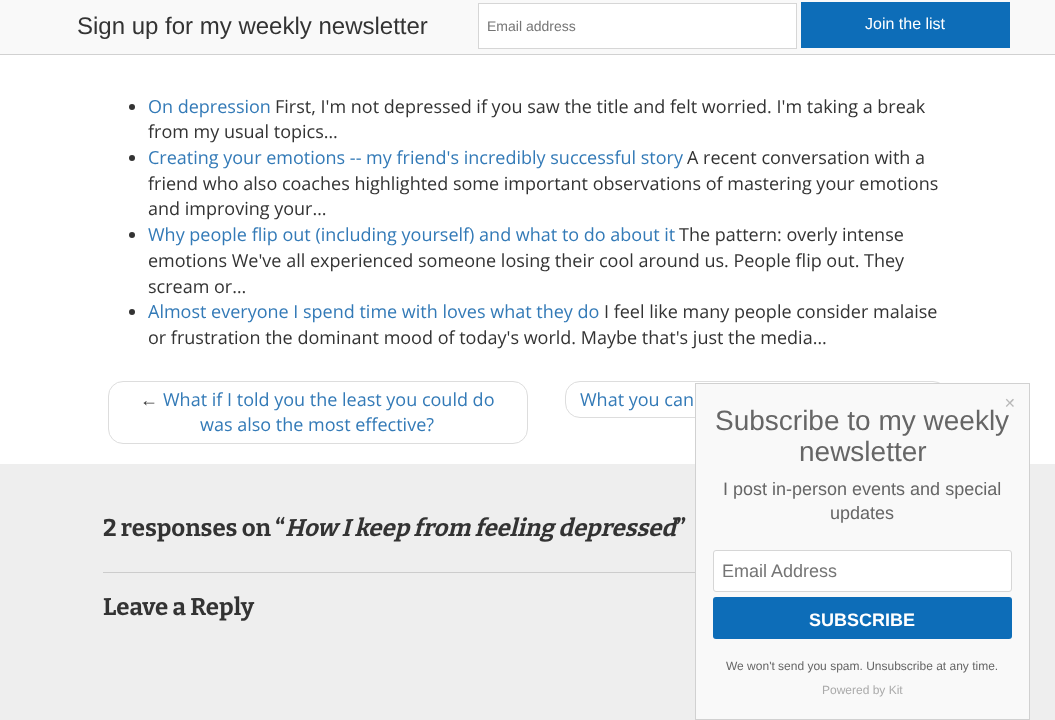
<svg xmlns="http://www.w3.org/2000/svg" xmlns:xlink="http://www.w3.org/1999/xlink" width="1055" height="720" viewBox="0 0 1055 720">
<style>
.cls-1{font:24px Liberation Sans;fill:#333333}
.cls-2{font:14px Liberation Sans;fill:#757575}
.cls-3{font:16px Liberation Sans;fill:#ffffff}
.cls-4{font:18px Open Sans;fill:#337ab7}
.cls-5{font:18px Open Sans;fill:#333333}
.cls-6{font:18px Liberation Sans;fill:#333333}
.cls-7{font:bold 24px Bitter;fill:#333333}
.cls-8{font:italic bold 24px Bitter;fill:#333333}
.cls-9{font:14px DejaVu Sans;fill:#b8b8b8}
.cls-10{font:28px Liberation Sans;fill:#666666}
.cls-11{font:18px Liberation Sans;fill:#666666}
.cls-12{font:18px Liberation Sans;fill:#757575}
.cls-13{font:bold 18px Liberation Sans;fill:#ffffff}
.cls-14{font:12px Liberation Sans;fill:#666666}
.cls-15{font:12px Liberation Sans;fill:#aaaaaa}
</style>
<rect width="100%" height="100%" fill="#ffffff"/>
<rect fill="#f9f9f9" x="0" y="0" width="1055" height="54"/>
<rect fill="#d1d1d1" x="0" y="54" width="1055" height="1"/>
<rect fill="#ffffff" stroke="#d6d6d6" x="478.5" y="3.5" width="318" height="45"/>
<rect fill="#0d6db8" x="801" y="2" width="209" height="46"/>
<circle fill="#333333" cx="132" cy="107" r="3"/>
<circle fill="#333333" cx="132" cy="158" r="3"/>
<circle fill="#333333" cx="132" cy="235" r="3"/>
<circle fill="#333333" cx="132" cy="312" r="3"/>
<rect fill="none" stroke="#dddddd" x="108.5" y="381.5" width="419" height="62" rx="14.5"/>
<rect fill="none" stroke="#dddddd" x="565.5" y="381.5" width="382" height="36" rx="14.5"/>
<rect fill="#eeeeee" x="0" y="464" width="1055" height="256"/>
<rect fill="#cccccc" x="103" y="572" width="592" height="1"/>
<rect fill="#f9f9f9" stroke="#d1d1d1" x="695.5" y="383.5" width="334" height="336"/>
<rect fill="#ffffff" stroke="#d6d6d6" x="713.5" y="550.5" width="298" height="41" rx="2.5"/>
<rect fill="#0d6db8" x="713" y="597" width="299" height="42" rx="3"/>
<text class="cls-1" x="77" y="34">Sign up for my weekly newsletter</text>
<text class="cls-2" x="487" y="31">Email address</text>
<text class="cls-3" x="865" y="29">Join the list</text>
<text class="cls-4" x="148" y="113">On depression</text>
<text class="cls-5" x="275" y="113">First, I'm not depressed if you saw the title and felt worried. I'm taking a break</text>
<text class="cls-5" x="148" y="138">from my usual topics…</text>
<text class="cls-4" x="148" y="164">Creating your emotions -- my friend's incredibly successful story</text>
<text class="cls-5" x="687" y="164">A recent conversation with a</text>
<text class="cls-5"><tspan x="148" y="190">friend who also coaches highlighted some important observations of mastering your emotions</tspan><tspan x="148" y="215">and improving your…</tspan></text>
<text class="cls-4" x="148" y="241">Why people flip out (including yourself) and what to do about it</text>
<text class="cls-5" x="679" y="241">The pattern: overly intense</text>
<text class="cls-5"><tspan x="148" y="267">emotions We've all experienced someone losing their cool around us. People flip out. They</tspan><tspan x="148" y="293">scream or…</tspan></text>
<text class="cls-4" x="148" y="318">Almost everyone I spend time with loves what they do</text>
<text class="cls-5" x="604" y="318">I feel like many people consider malaise</text>
<text class="cls-5" x="148" y="344">or frustration the dominant mood of today's world. Maybe that's just the media…</text>
<text class="cls-6" x="140" y="406">←</text>
<text class="cls-4" x="163" y="406">What if I told you the least you could do</text>
<text class="cls-4" x="200" y="431">was also the most effective?</text>
<text class="cls-4" x="580" y="406">What you can</text>
<text class="cls-7" x="103" y="536">2 responses on “</text>
<text class="cls-8" x="285" y="536">How I keep from feeling depressed</text>
<text class="cls-7" x="676" y="536">”</text>
<text class="cls-7" x="103" y="615">Leave a Reply</text>
<text class="cls-9" x="1004" y="408">✕</text>
<text class="cls-10" x="715" y="430">Subscribe to my weekly</text>
<text class="cls-10" x="799" y="461">newsletter</text>
<text class="cls-11" x="723" y="495">I post in-person events and special</text>
<text class="cls-11" x="830" y="519">updates</text>
<text class="cls-12" x="722" y="577">Email Address</text>
<text class="cls-13" x="809" y="626">SUBSCRIBE</text>
<text class="cls-14" x="726" y="670">We won't send you spam. Unsubscribe at any time.</text>
<text class="cls-15" x="822" y="694">Powered by Kit</text>
</svg>
